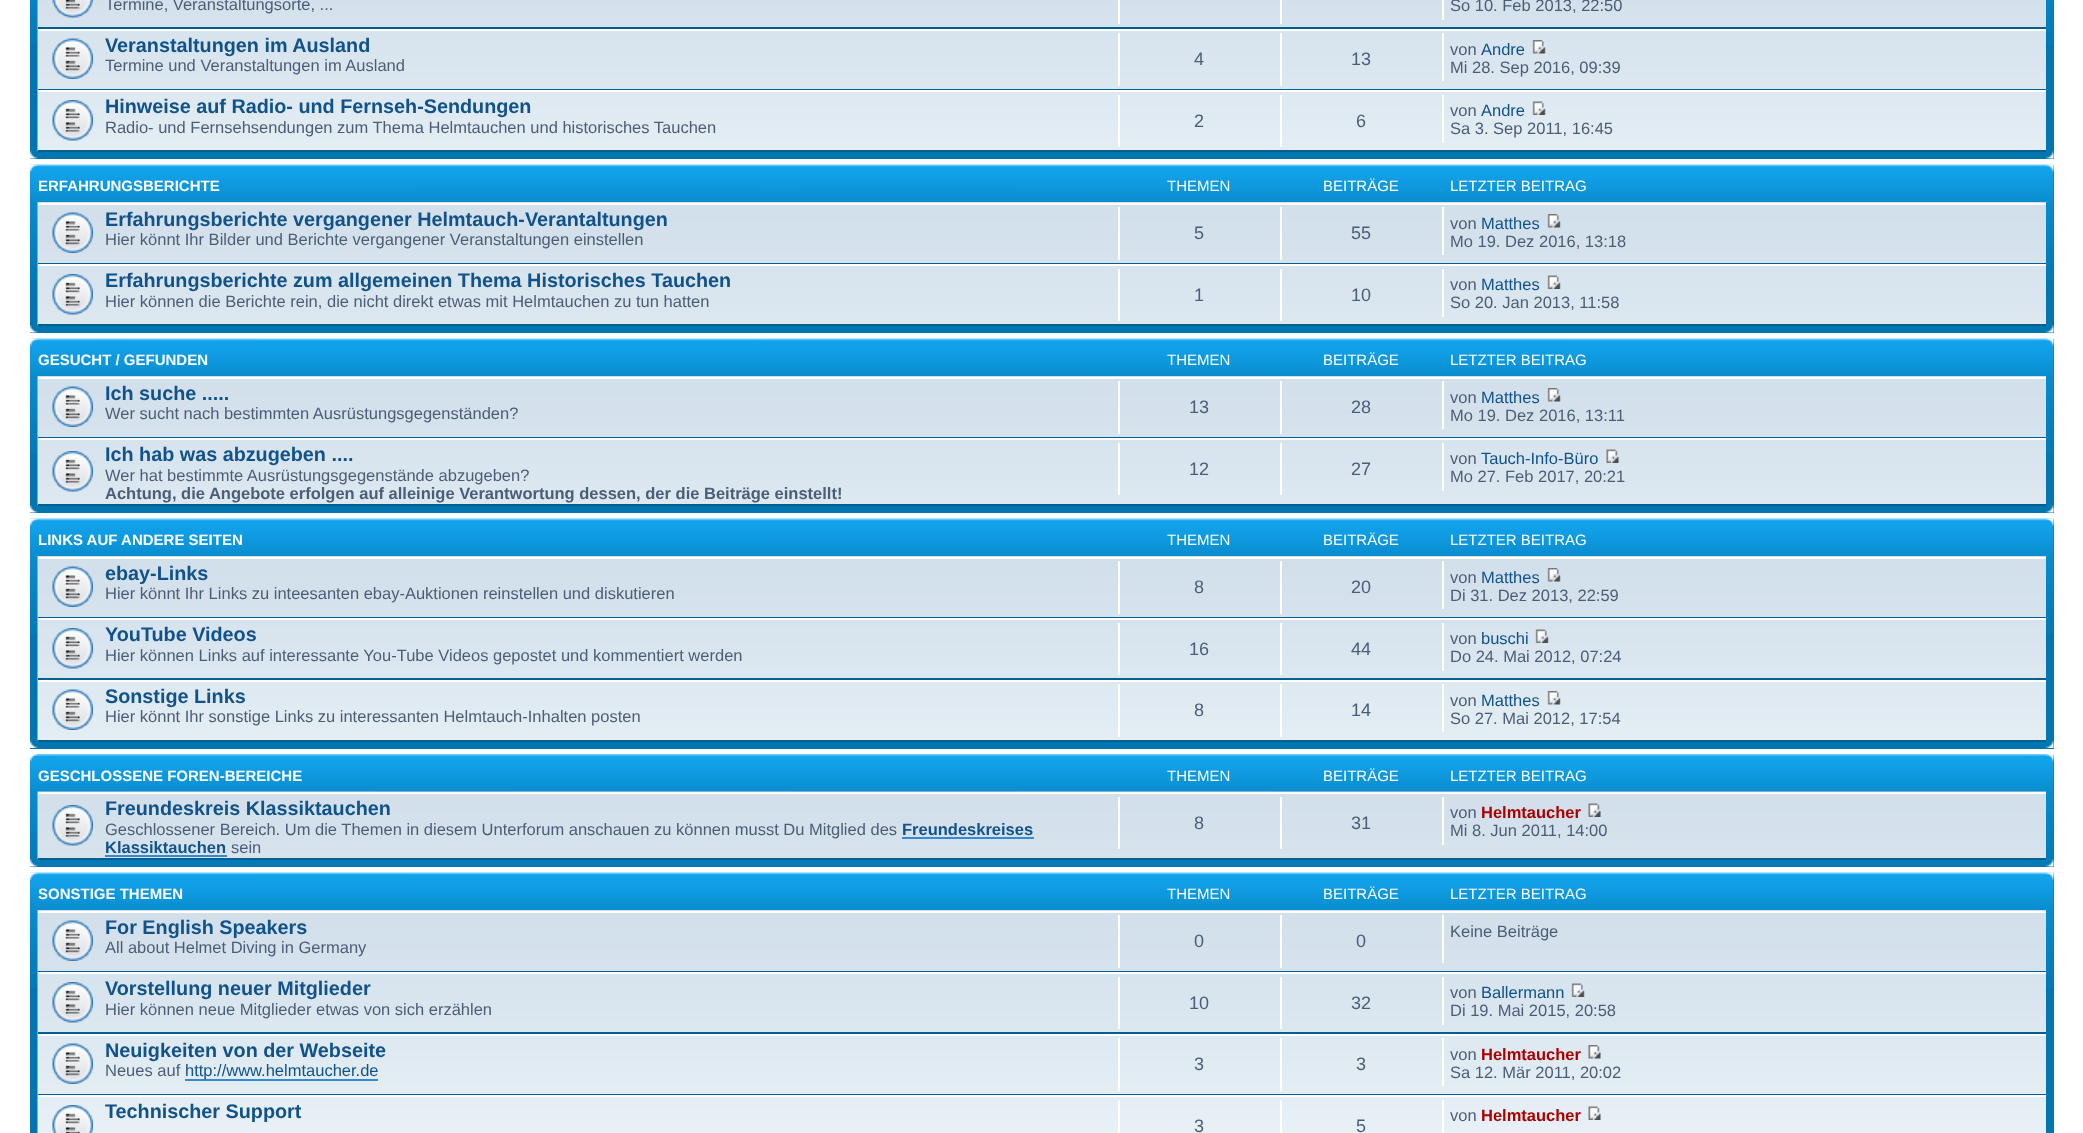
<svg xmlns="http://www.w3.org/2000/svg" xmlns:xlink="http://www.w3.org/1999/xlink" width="2083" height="1133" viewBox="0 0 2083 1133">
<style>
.cls-1{font:16.5px Liberation Sans;fill:#4c5d77}
.cls-2{font:bold 19.8px Liberation Sans;fill:#105289}
.cls-3{font:18px Liberation Sans;fill:#4c5d77}
.cls-4{font:16.5px Liberation Sans;fill:#105289}
.cls-5{font:bold 15px Liberation Sans;fill:#ffffff}
.cls-6{font:15px Liberation Sans;fill:#ffffff}
.cls-7{font:bold 16.5px Liberation Sans;fill:#4c5d77}
.cls-8{font:bold 16.5px Liberation Sans;fill:#105289}
.cls-9{font:bold 16.5px Liberation Sans;fill:#aa0000}
</style>
<rect width="100%" height="100%" fill="#ffffff"/>
<rect fill="#0076b1" x="30" y="0" width="2024" height="159"/>
<image xlink:href="image0.png" x="30" y="0" width="2024" height="45"/>
<image xlink:href="image1.png" x="37" y="0" width="2009" height="151"/>
<rect fill="#00608f" x="38" y="27" width="2008" height="2"/>
<image xlink:href="image2.png" x="52" y="0" width="41" height="18"/>
<rect fill="#ffffff" x="1118" y="0" width="2" height="24"/>
<rect fill="#ffffff" x="1280" y="0" width="2" height="24"/>
<rect fill="#ffffff" x="1442" y="0" width="2" height="20"/>
<rect fill="#ffffff" x="38" y="29" width="2008" height="2"/>
<rect fill="#00608f" x="38" y="89" width="2008" height="1"/>
<image xlink:href="image3.png" x="52" y="38" width="41" height="41"/>
<rect fill="#ffffff" x="1118" y="33" width="2" height="53"/>
<rect fill="#ffffff" x="1280" y="33" width="2" height="53"/>
<rect fill="#ffffff" x="1442" y="33" width="2" height="48"/>
<image xlink:href="image4.png" x="1532" y="40" width="14" height="14"/>
<rect fill="#ffffff" x="38" y="90" width="2008" height="2"/>
<rect fill="#00608f" x="38" y="150" width="2008" height="2"/>
<image xlink:href="image5.png" x="52" y="100" width="41" height="41"/>
<rect fill="#ffffff" x="1118" y="95" width="2" height="52"/>
<rect fill="#ffffff" x="1280" y="95" width="2" height="52"/>
<rect fill="#ffffff" x="1442" y="95" width="2" height="48"/>
<image xlink:href="image6.png" x="1532" y="101" width="14" height="14"/>
<image xlink:href="image7.png" x="30" y="151" width="8" height="8"/>
<image xlink:href="image8.png" x="2045" y="151" width="9" height="8"/>
<rect fill="#0076b1" x="30" y="165" width="2024" height="168"/>
<image xlink:href="image9.png" x="30" y="164" width="2024" height="116"/>
<image xlink:href="image10.png" x="30" y="164" width="8" height="8"/>
<image xlink:href="image11.png" x="2045" y="164" width="9" height="8"/>
<image xlink:href="image12.png" x="37" y="202" width="2009" height="123"/>
<rect fill="#ffffff" x="38" y="203" width="2008" height="2"/>
<rect fill="#00608f" x="38" y="263" width="2008" height="1"/>
<image xlink:href="image13.png" x="52" y="212" width="41" height="41"/>
<rect fill="#ffffff" x="1118" y="207" width="2" height="53"/>
<rect fill="#ffffff" x="1280" y="207" width="2" height="53"/>
<rect fill="#ffffff" x="1442" y="207" width="2" height="48"/>
<image xlink:href="image14.png" x="1547" y="214" width="14" height="14"/>
<rect fill="#ffffff" x="38" y="264" width="2008" height="2"/>
<rect fill="#00608f" x="38" y="324" width="2008" height="2"/>
<image xlink:href="image15.png" x="52" y="274" width="41" height="41"/>
<rect fill="#ffffff" x="1118" y="269" width="2" height="52"/>
<rect fill="#ffffff" x="1280" y="269" width="2" height="52"/>
<rect fill="#ffffff" x="1442" y="269" width="2" height="48"/>
<image xlink:href="image16.png" x="1547" y="275" width="14" height="14"/>
<image xlink:href="image7.png" x="30" y="325" width="8" height="8"/>
<image xlink:href="image8.png" x="2045" y="325" width="9" height="8"/>
<rect fill="#0076b1" x="30" y="339" width="2024" height="174"/>
<image xlink:href="image17.png" x="30" y="338" width="2024" height="116"/>
<image xlink:href="image18.png" x="30" y="338" width="8" height="8"/>
<image xlink:href="image19.png" x="2045" y="338" width="9" height="8"/>
<image xlink:href="image20.png" x="37" y="376" width="2009" height="129"/>
<rect fill="#ffffff" x="38" y="377" width="2008" height="2"/>
<rect fill="#00608f" x="38" y="437" width="2008" height="1"/>
<image xlink:href="image13.png" x="52" y="386" width="41" height="41"/>
<rect fill="#ffffff" x="1118" y="381" width="2" height="53"/>
<rect fill="#ffffff" x="1280" y="381" width="2" height="53"/>
<rect fill="#ffffff" x="1442" y="381" width="2" height="48"/>
<image xlink:href="image21.png" x="1547" y="388" width="14" height="14"/>
<rect fill="#ffffff" x="38" y="438" width="2008" height="2"/>
<rect fill="#00608f" x="38" y="504" width="2008" height="2"/>
<image xlink:href="image22.png" x="52" y="451" width="41" height="41"/>
<rect fill="#ffffff" x="1118" y="443" width="2" height="52"/>
<rect fill="#ffffff" x="1280" y="443" width="2" height="52"/>
<rect fill="#ffffff" x="1442" y="443" width="2" height="48"/>
<image xlink:href="image23.png" x="1606" y="449" width="13" height="14"/>
<image xlink:href="image7.png" x="30" y="505" width="8" height="8"/>
<image xlink:href="image8.png" x="2045" y="505" width="9" height="8"/>
<rect fill="#0076b1" x="30" y="519" width="2024" height="230"/>
<image xlink:href="image24.png" x="30" y="518" width="2024" height="116"/>
<image xlink:href="image25.png" x="30" y="518" width="8" height="8"/>
<image xlink:href="image26.png" x="2045" y="518" width="9" height="8"/>
<image xlink:href="image27.png" x="37" y="556" width="2009" height="185"/>
<rect fill="#ffffff" x="38" y="557" width="2008" height="2"/>
<rect fill="#00608f" x="38" y="617" width="2008" height="1"/>
<image xlink:href="image13.png" x="52" y="566" width="41" height="41"/>
<rect fill="#ffffff" x="1118" y="561" width="2" height="53"/>
<rect fill="#ffffff" x="1280" y="561" width="2" height="53"/>
<rect fill="#ffffff" x="1442" y="561" width="2" height="48"/>
<image xlink:href="image14.png" x="1547" y="568" width="14" height="14"/>
<rect fill="#ffffff" x="38" y="618" width="2008" height="2"/>
<rect fill="#00608f" x="38" y="678" width="2008" height="2"/>
<image xlink:href="image15.png" x="52" y="628" width="41" height="41"/>
<rect fill="#ffffff" x="1118" y="623" width="2" height="52"/>
<rect fill="#ffffff" x="1280" y="623" width="2" height="52"/>
<rect fill="#ffffff" x="1442" y="623" width="2" height="48"/>
<image xlink:href="image16.png" x="1535" y="629" width="14" height="14"/>
<rect fill="#ffffff" x="38" y="680" width="2008" height="2"/>
<rect fill="#00608f" x="38" y="740" width="2008" height="2"/>
<image xlink:href="image28.png" x="52" y="689" width="41" height="41"/>
<rect fill="#ffffff" x="1118" y="684" width="2" height="53"/>
<rect fill="#ffffff" x="1280" y="684" width="2" height="53"/>
<rect fill="#ffffff" x="1442" y="684" width="2" height="48"/>
<image xlink:href="image29.png" x="1547" y="691" width="14" height="14"/>
<image xlink:href="image30.png" x="30" y="740" width="8" height="8"/>
<image xlink:href="image31.png" x="2045" y="740" width="9" height="8"/>
<rect fill="#0076b1" x="30" y="755" width="2024" height="112"/>
<image xlink:href="image32.png" x="30" y="754" width="2024" height="112"/>
<image xlink:href="image33.png" x="30" y="754" width="8" height="8"/>
<image xlink:href="image34.png" x="2045" y="754" width="9" height="8"/>
<image xlink:href="image35.png" x="37" y="791" width="2009" height="68"/>
<rect fill="#ffffff" x="38" y="792" width="2008" height="2"/>
<rect fill="#00608f" x="38" y="858" width="2008" height="2"/>
<image xlink:href="image36.png" x="52" y="805" width="41" height="41"/>
<rect fill="#368ad2" x="902" y="837" width="132" height="2"/>
<rect fill="#368ad2" x="105" y="855" width="122" height="2"/>
<rect fill="#ffffff" x="1118" y="797" width="2" height="52"/>
<rect fill="#ffffff" x="1280" y="797" width="2" height="52"/>
<rect fill="#ffffff" x="1442" y="797" width="2" height="48"/>
<image xlink:href="image37.png" x="1588" y="803" width="13" height="14"/>
<image xlink:href="image38.png" x="30" y="859" width="8" height="8"/>
<image xlink:href="image39.png" x="2045" y="859" width="9" height="8"/>
<rect fill="#0076b1" x="30" y="873" width="2024" height="260"/>
<image xlink:href="image40.png" x="30" y="872" width="2024" height="116"/>
<image xlink:href="image41.png" x="30" y="872" width="8" height="8"/>
<image xlink:href="image19.png" x="2045" y="872" width="9" height="8"/>
<image xlink:href="image42.png" x="37" y="910" width="2009" height="223"/>
<rect fill="#ffffff" x="38" y="911" width="2008" height="2"/>
<rect fill="#00608f" x="38" y="971" width="2008" height="1"/>
<image xlink:href="image13.png" x="52" y="920" width="41" height="41"/>
<rect fill="#ffffff" x="1118" y="915" width="2" height="53"/>
<rect fill="#ffffff" x="1280" y="915" width="2" height="53"/>
<rect fill="#ffffff" x="1442" y="915" width="2" height="48"/>
<rect fill="#ffffff" x="38" y="972" width="2008" height="2"/>
<rect fill="#00608f" x="38" y="1032" width="2008" height="2"/>
<image xlink:href="image15.png" x="52" y="982" width="41" height="41"/>
<rect fill="#ffffff" x="1118" y="977" width="2" height="52"/>
<rect fill="#ffffff" x="1280" y="977" width="2" height="52"/>
<rect fill="#ffffff" x="1442" y="977" width="2" height="48"/>
<image xlink:href="image16.png" x="1571" y="983" width="14" height="14"/>
<rect fill="#ffffff" x="38" y="1034" width="2008" height="2"/>
<rect fill="#00608f" x="38" y="1094" width="2008" height="1"/>
<image xlink:href="image28.png" x="52" y="1043" width="41" height="41"/>
<rect fill="#368ad2" x="185" y="1079" width="193" height="2"/>
<rect fill="#ffffff" x="1118" y="1038" width="2" height="53"/>
<rect fill="#ffffff" x="1280" y="1038" width="2" height="53"/>
<rect fill="#ffffff" x="1442" y="1038" width="2" height="48"/>
<image xlink:href="image43.png" x="1588" y="1045" width="13" height="14"/>
<rect fill="#ffffff" x="38" y="1095" width="2008" height="2"/>
<image xlink:href="image44.png" x="52" y="1105" width="41" height="28"/>
<rect fill="#ffffff" x="1442" y="1100" width="2" height="33"/>
<image xlink:href="image45.png" x="1588" y="1106" width="13" height="14"/>
<rect fill="#ffffff" x="1118" y="1100" width="2" height="33"/>
<rect fill="#ffffff" x="1280" y="1100" width="2" height="33"/>
<text class="cls-1" x="105" y="10">Termine, Veranstaltungsorte, ...</text>
<text class="cls-1" x="1450" y="11">So 10. Feb 2013, 22:50</text>
<text class="cls-2" x="105" y="52">Veranstaltungen im Ausland</text>
<text class="cls-1" x="105" y="71">Termine und Veranstaltungen im Ausland</text>
<text class="cls-3" x="1194" y="65">4</text>
<text class="cls-3" x="1351" y="65">13</text>
<text class="cls-1" x="1450" y="55">von</text>
<text class="cls-4" x="1481" y="55">Andre</text>
<text class="cls-1" x="1450" y="73">Mi 28. Sep 2016, 09:39</text>
<text class="cls-2" x="105" y="113">Hinweise auf Radio- und Fernseh-Sendungen</text>
<text class="cls-1" x="105" y="133">Radio- und Fernsehsendungen zum Thema Helmtauchen und historisches Tauchen</text>
<text class="cls-3" x="1194" y="127">2</text>
<text class="cls-3" x="1356" y="127">6</text>
<text class="cls-1" x="1450" y="116">von</text>
<text class="cls-4" x="1481" y="116">Andre</text>
<text class="cls-1" x="1450" y="134">Sa 3. Sep 2011, 16:45</text>
<text class="cls-5" x="38" y="191">ERFAHRUNGSBERICHTE</text>
<text class="cls-6" x="1167" y="191">THEMEN</text>
<text class="cls-6" x="1323" y="191">BEITRÄGE</text>
<text class="cls-6" x="1450" y="191">LETZTER BEITRAG</text>
<text class="cls-2" x="105" y="226">Erfahrungsberichte vergangener Helmtauch-Verantaltungen</text>
<text class="cls-1" x="105" y="245">Hier könnt Ihr Bilder und Berichte vergangener Veranstaltungen einstellen</text>
<text class="cls-3" x="1194" y="239">5</text>
<text class="cls-3" x="1351" y="239">55</text>
<text class="cls-1" x="1450" y="229">von</text>
<text class="cls-4" x="1481" y="229">Matthes</text>
<text class="cls-1" x="1450" y="247">Mo 19. Dez 2016, 13:18</text>
<text class="cls-2" x="105" y="287">Erfahrungsberichte zum allgemeinen Thema Historisches Tauchen</text>
<text class="cls-1" x="105" y="307">Hier können die Berichte rein, die nicht direkt etwas mit Helmtauchen zu tun hatten</text>
<text class="cls-3" x="1194" y="301">1</text>
<text class="cls-3" x="1351" y="301">10</text>
<text class="cls-1" x="1450" y="290">von</text>
<text class="cls-4" x="1481" y="290">Matthes</text>
<text class="cls-1" x="1450" y="308">So 20. Jan 2013, 11:58</text>
<text class="cls-5" x="38" y="365">GESUCHT / GEFUNDEN</text>
<text class="cls-6" x="1167" y="365">THEMEN</text>
<text class="cls-6" x="1323" y="365">BEITRÄGE</text>
<text class="cls-6" x="1450" y="365">LETZTER BEITRAG</text>
<text class="cls-2" x="105" y="400">Ich suche .....</text>
<text class="cls-1" x="105" y="419">Wer sucht nach bestimmten Ausrüstungsgegenständen?</text>
<text class="cls-3" x="1189" y="413">13</text>
<text class="cls-3" x="1351" y="413">28</text>
<text class="cls-1" x="1450" y="403">von</text>
<text class="cls-4" x="1481" y="403">Matthes</text>
<text class="cls-1" x="1450" y="421">Mo 19. Dez 2016, 13:11</text>
<text class="cls-2" x="105" y="461">Ich hab was abzugeben ....</text>
<text class="cls-1" x="105" y="481">Wer hat bestimmte Ausrüstungsgegenstände abzugeben?</text>
<text class="cls-7" x="105" y="499">Achtung, die Angebote erfolgen auf alleinige Verantwortung dessen, der die Beiträge einstellt!</text>
<text class="cls-3" x="1189" y="475">12</text>
<text class="cls-3" x="1351" y="475">27</text>
<text class="cls-1" x="1450" y="464">von</text>
<text class="cls-4" x="1481" y="464">Tauch-Info-Büro</text>
<text class="cls-1" x="1450" y="482">Mo 27. Feb 2017, 20:21</text>
<text class="cls-5" x="38" y="545">LINKS AUF ANDERE SEITEN</text>
<text class="cls-6" x="1167" y="545">THEMEN</text>
<text class="cls-6" x="1323" y="545">BEITRÄGE</text>
<text class="cls-6" x="1450" y="545">LETZTER BEITRAG</text>
<text class="cls-2" x="105" y="580">ebay-Links</text>
<text class="cls-1" x="105" y="599">Hier könnt Ihr Links zu inteesanten ebay-Auktionen reinstellen und diskutieren</text>
<text class="cls-3" x="1194" y="593">8</text>
<text class="cls-3" x="1351" y="593">20</text>
<text class="cls-1" x="1450" y="583">von</text>
<text class="cls-4" x="1481" y="583">Matthes</text>
<text class="cls-1" x="1450" y="601">Di 31. Dez 2013, 22:59</text>
<text class="cls-2" x="105" y="641">YouTube Videos</text>
<text class="cls-1" x="105" y="661">Hier können Links auf interessante You-Tube Videos gepostet und kommentiert werden</text>
<text class="cls-3" x="1189" y="655">16</text>
<text class="cls-3" x="1351" y="655">44</text>
<text class="cls-1" x="1450" y="644">von</text>
<text class="cls-4" x="1481" y="644">buschi</text>
<text class="cls-1" x="1450" y="662">Do 24. Mai 2012, 07:24</text>
<text class="cls-2" x="105" y="703">Sonstige Links</text>
<text class="cls-1" x="105" y="722">Hier könnt Ihr sonstige Links zu interessanten Helmtauch-Inhalten posten</text>
<text class="cls-3" x="1194" y="716">8</text>
<text class="cls-3" x="1351" y="716">14</text>
<text class="cls-1" x="1450" y="706">von</text>
<text class="cls-4" x="1481" y="706">Matthes</text>
<text class="cls-1" x="1450" y="724">So 27. Mai 2012, 17:54</text>
<text class="cls-5" x="38" y="781">GESCHLOSSENE FOREN-BEREICHE</text>
<text class="cls-6" x="1167" y="781">THEMEN</text>
<text class="cls-6" x="1323" y="781">BEITRÄGE</text>
<text class="cls-6" x="1450" y="781">LETZTER BEITRAG</text>
<text class="cls-2" x="105" y="815">Freundeskreis Klassiktauchen</text>
<text class="cls-1" x="105" y="835">Geschlossener Bereich. Um die Themen in diesem Unterforum anschauen zu können musst Du Mitglied des</text>
<text class="cls-8" x="902" y="835">Freundeskreises</text>
<text class="cls-8" x="105" y="853">Klassiktauchen</text>
<text class="cls-1" x="231" y="853">sein</text>
<text class="cls-3" x="1194" y="829">8</text>
<text class="cls-3" x="1351" y="829">31</text>
<text class="cls-1" x="1450" y="818">von</text>
<text class="cls-9" x="1481" y="818">Helmtaucher</text>
<text class="cls-1" x="1450" y="836">Mi 8. Jun 2011, 14:00</text>
<text class="cls-5" x="38" y="899">SONSTIGE THEMEN</text>
<text class="cls-6" x="1167" y="899">THEMEN</text>
<text class="cls-6" x="1323" y="899">BEITRÄGE</text>
<text class="cls-6" x="1450" y="899">LETZTER BEITRAG</text>
<text class="cls-2" x="105" y="934">For English Speakers</text>
<text class="cls-1" x="105" y="953">All about Helmet Diving in Germany</text>
<text class="cls-3" x="1194" y="947">0</text>
<text class="cls-3" x="1356" y="947">0</text>
<text class="cls-1" x="1450" y="937">Keine Beiträge</text>
<text class="cls-2" x="105" y="995">Vorstellung neuer Mitglieder</text>
<text class="cls-1" x="105" y="1015">Hier können neue Mitglieder etwas von sich erzählen</text>
<text class="cls-3" x="1189" y="1009">10</text>
<text class="cls-3" x="1351" y="1009">32</text>
<text class="cls-1" x="1450" y="998">von</text>
<text class="cls-4" x="1481" y="998">Ballermann</text>
<text class="cls-1" x="1450" y="1016">Di 19. Mai 2015, 20:58</text>
<text class="cls-2" x="105" y="1057">Neuigkeiten von der Webseite</text>
<text class="cls-1" x="105" y="1076">Neues auf</text>
<text class="cls-4" x="185" y="1076">http://www.helmtaucher.de</text>
<text class="cls-3" x="1194" y="1070">3</text>
<text class="cls-3" x="1356" y="1070">3</text>
<text class="cls-1" x="1450" y="1060">von</text>
<text class="cls-9" x="1481" y="1060">Helmtaucher</text>
<text class="cls-1" x="1450" y="1078">Sa 12. Mär 2011, 20:02</text>
<text class="cls-2" x="105" y="1118">Technischer Support</text>
<text class="cls-1" x="1450" y="1121">von</text>
<text class="cls-9" x="1481" y="1121">Helmtaucher</text>
<text class="cls-3" x="1194" y="1132">3</text>
<text class="cls-3" x="1356" y="1132">5</text>
</svg>
